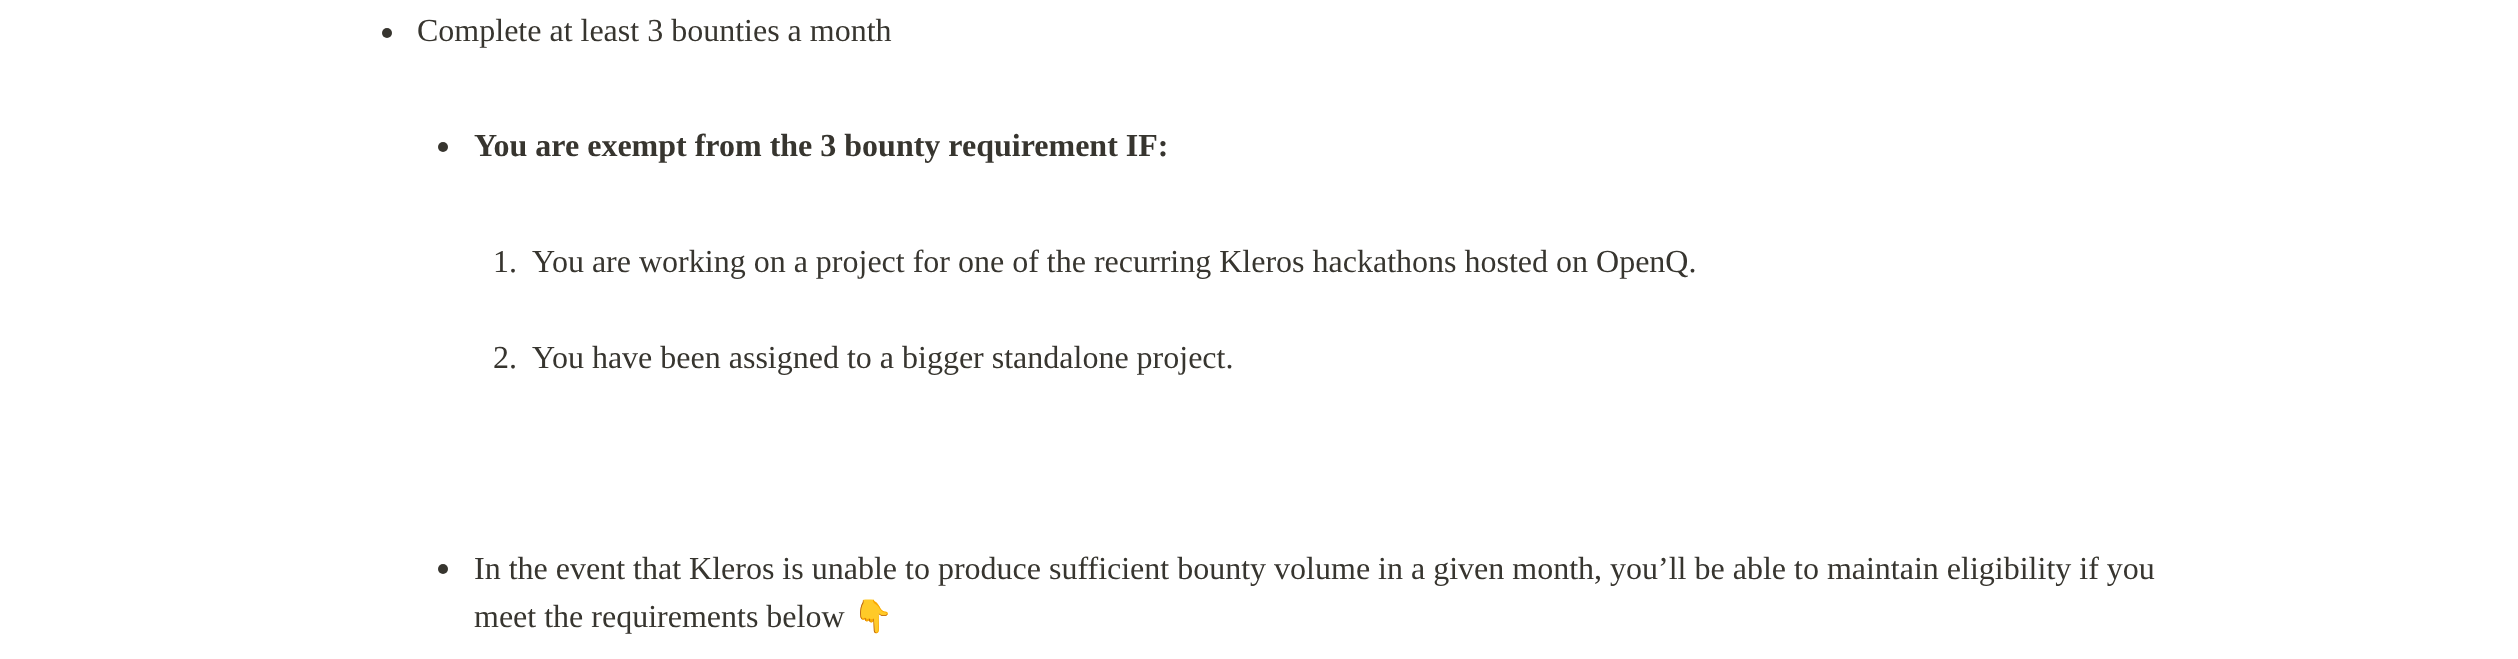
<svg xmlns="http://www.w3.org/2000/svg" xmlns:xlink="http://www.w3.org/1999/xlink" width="2518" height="659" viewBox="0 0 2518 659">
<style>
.cls-1{font:32px Liberation Serif;fill:#37352f}
.cls-2{font:bold 32px Liberation Serif;fill:#37352f}
.cls-3{font:32px Noto Color Emoji;fill:#37352f}
</style>
<rect width="100%" height="100%" fill="#ffffff"/>
<circle fill="#37352f" cx="387" cy="33" r="5"/>
<circle fill="#37352f" cx="443" cy="147" r="5"/>
<circle fill="#37352f" cx="443" cy="569" r="5"/>
<text class="cls-1" x="417" y="41">Complete at least 3 bounties a month</text>
<text class="cls-2" x="474" y="156">You are exempt from the 3 bounty requirement IF:</text>
<text class="cls-1" x="493" y="272">1.</text>
<text class="cls-1" x="532" y="272">You are working on a project for one of the recurring Kleros hackathons hosted on OpenQ.</text>
<text class="cls-1" x="493" y="368">2.</text>
<text class="cls-1" x="532" y="368">You have been assigned to a bigger standalone project.</text>
<text class="cls-1"><tspan x="474" y="579">In the event that Kleros is unable to produce sufficient bounty volume in a given month, you’ll be able to maintain eligibility if you</tspan><tspan x="474" y="627">meet the requirements below</tspan></text>
<text class="cls-3" x="853" y="627">👇</text>
</svg>
